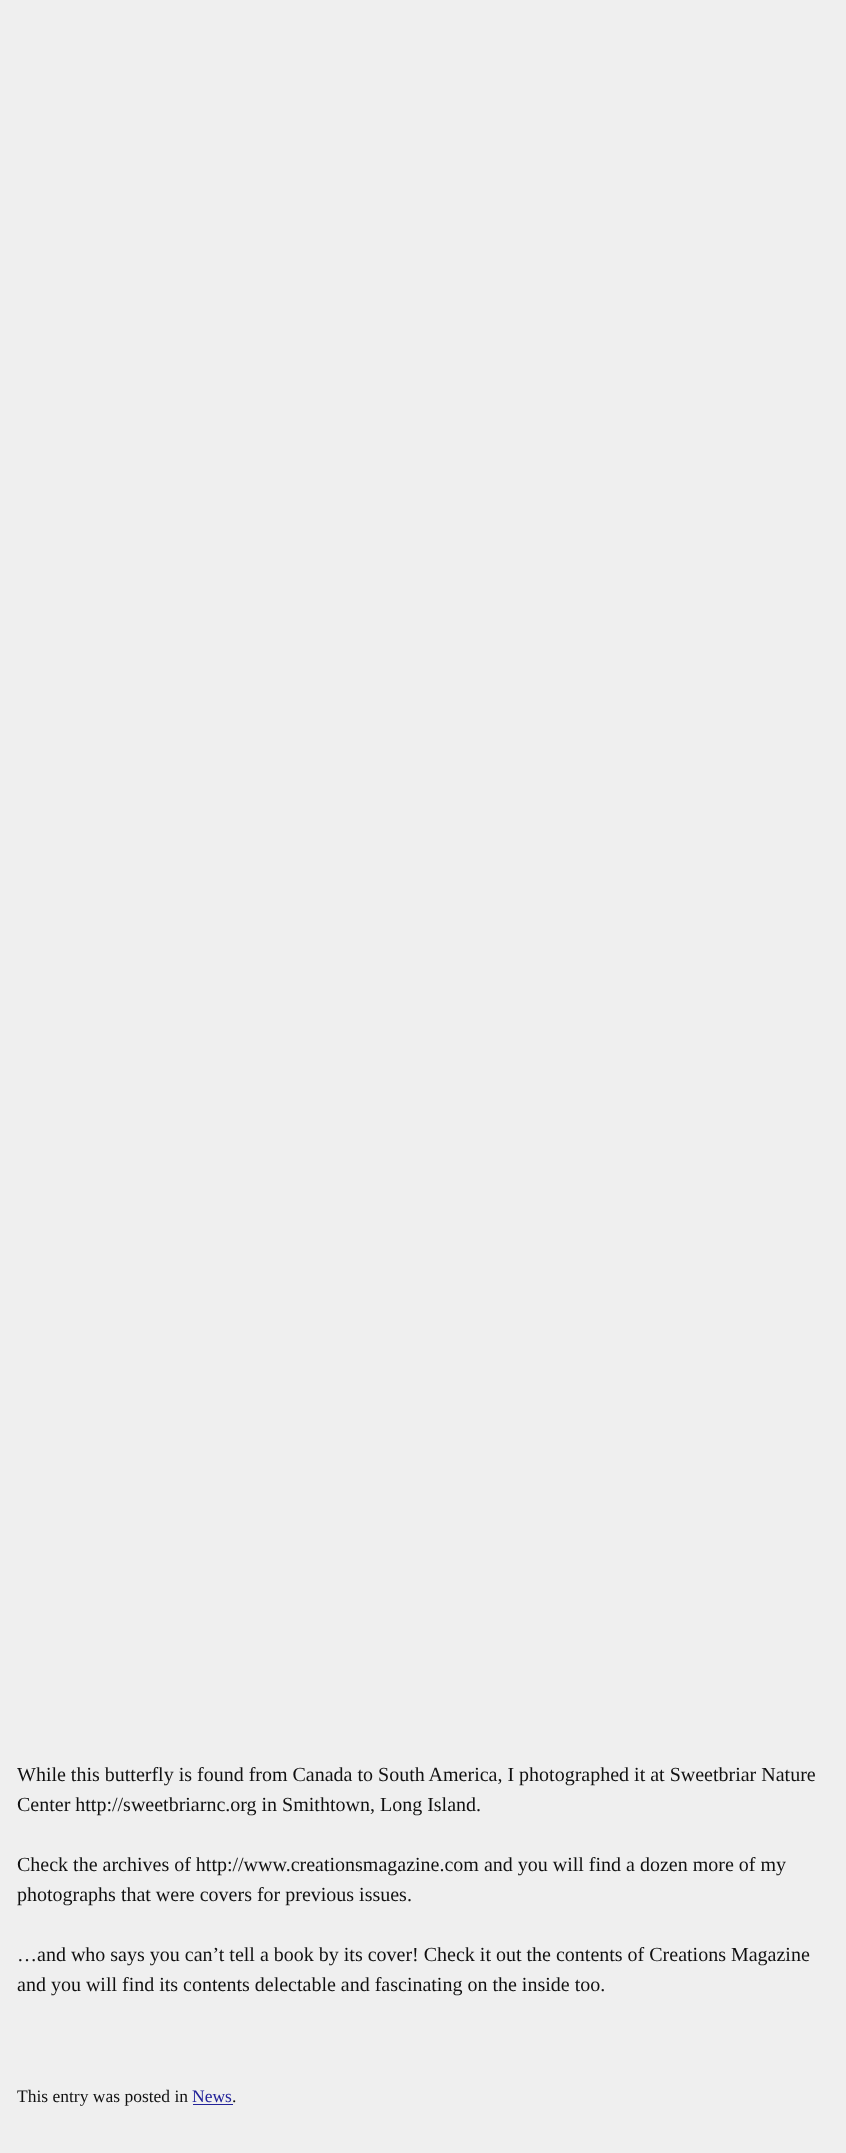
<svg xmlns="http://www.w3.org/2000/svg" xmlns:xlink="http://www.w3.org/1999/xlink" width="846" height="2153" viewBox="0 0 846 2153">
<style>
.cls-1{font:20px Liberation Serif;fill:#111111}
.cls-2{font:17.5px Liberation Serif;fill:#111111}
.cls-3{font:17.5px Liberation Serif;fill:#222299}
</style>
<rect width="100%" height="100%" fill="#efefef"/>
<rect fill="#222299" x="193" y="2104" width="40" height="1"/>
<text class="cls-1"><tspan x="17" y="1781">While this butterfly is found from Canada to South America, I photographed it at Sweetbriar Nature</tspan><tspan x="17" y="1811">Center http://sweetbriarnc.org in Smithtown, Long Island.</tspan></text>
<text class="cls-1"><tspan x="17" y="1871">Check the archives of http://www.creationsmagazine.com and you will find a dozen more of my</tspan><tspan x="17" y="1901">photographs that were covers for previous issues.</tspan></text>
<text class="cls-1"><tspan x="17" y="1961">…and who says you can’t tell a book by its cover! Check it out the contents of Creations Magazine</tspan><tspan x="17" y="1991">and you will find its contents delectable and fascinating on the inside too.</tspan></text>
<text class="cls-2" x="17" y="2102">This entry was posted in</text>
<text class="cls-3" x="192" y="2102">News</text>
<text class="cls-2" x="232" y="2102">.</text>
</svg>
